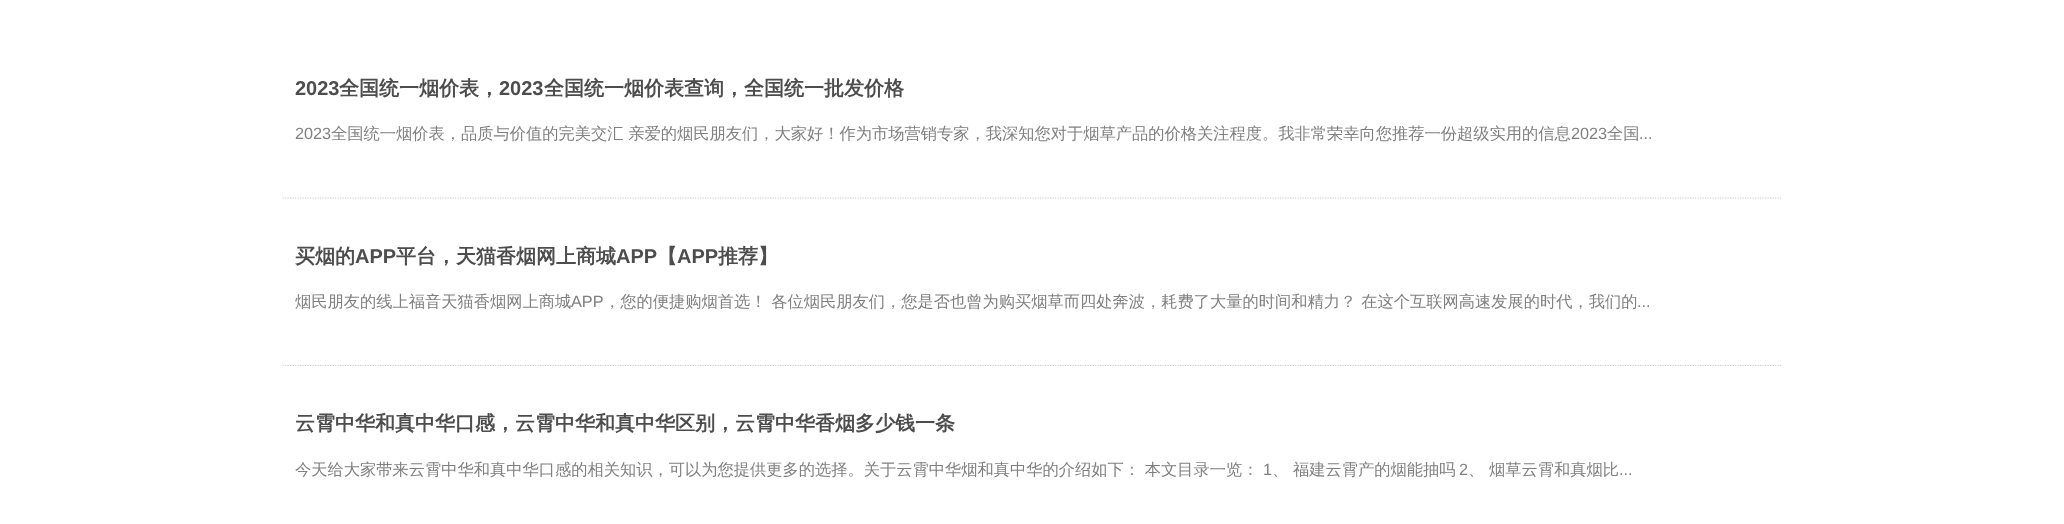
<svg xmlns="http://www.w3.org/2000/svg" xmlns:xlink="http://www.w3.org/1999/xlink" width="2064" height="524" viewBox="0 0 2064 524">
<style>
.cls-1{font:bold 20px Liberation Sans;fill:#4d4d4d}
.cls-2{font:bold 20px WenQuanYi Zen Hei;fill:#4d4d4d}
.cls-3{font:16.25px Liberation Sans;fill:#808080}
.cls-4{font:500 16.25px WenQuanYi Zen Hei;fill:#808080}
</style>
<rect width="100%" height="100%" fill="#ffffff"/>
<path fill="none" stroke="#cccccc" stroke-width="1.2" stroke-dasharray="1.25 1.25" d="M282.5 198H1782.5"/>
<path fill="none" stroke="#cccccc" stroke-width="1.2" stroke-dasharray="1.25 1.25" d="M282.5 365.5H1782.5"/>
<text class="cls-1" x="295" y="95">2023</text>
<text class="cls-2" x="339" y="95">全国统一烟价表，</text>
<text class="cls-1" x="499" y="95">2023</text>
<text class="cls-2" x="544" y="95">全国统一烟价表查询，全国统一批发价格</text>
<text class="cls-3" x="295" y="139">2023</text>
<text class="cls-4" x="331" y="139">全国统一烟价表，品质与价值的完美交汇 亲爱的烟民朋友们，大家好！作为市场营销专家，我深知您对于烟草产品的价格关注程度。我非常荣幸向您推荐一份超级实用的信息</text>
<text class="cls-3" x="1571" y="139">2023</text>
<text class="cls-4" x="1607" y="139">全国</text>
<text class="cls-3" x="1639" y="139">...</text>
<text class="cls-2" x="295" y="263">买烟的</text>
<text class="cls-1" x="355" y="263">APP</text>
<text class="cls-2" x="396" y="263">平台，天猫香烟网上商城</text>
<text class="cls-1" x="616" y="263">APP</text>
<text class="cls-2" x="657" y="263">【</text>
<text class="cls-1" x="677" y="263">APP</text>
<text class="cls-2" x="718" y="263">推荐】</text>
<text class="cls-4" x="295" y="307">烟民朋友的线上福音天猫香烟网上商城</text>
<text class="cls-3" x="571" y="307">APP</text>
<text class="cls-4" x="604" y="307">，您的便捷购烟首选！ 各位烟民朋友们，您是否也曾为购买烟草而四处奔波，耗费了大量的时间和精力？ 在这个互联网高速发展的时代，我们的</text>
<text class="cls-3" x="1637" y="307">...</text>
<text class="cls-2" x="295" y="430">云霄中华和真中华口感，云霄中华和真中华区别，云霄中华香烟多少钱一条</text>
<text class="cls-4" x="295" y="475">今天给大家带来云霄中华和真中华口感的相关知识，可以为您提供更多的选择。关于云霄中华烟和真中华的介绍如下： 本文目录一览：</text>
<text class="cls-3" x="1263" y="475">1</text>
<text class="cls-4" x="1272" y="475">、 福建云霄产的烟能抽吗</text>
<text class="cls-3" x="1459" y="475">2</text>
<text class="cls-4" x="1468" y="475">、 烟草云霄和真烟比</text>
<text class="cls-3" x="1619" y="475">...</text>
</svg>
